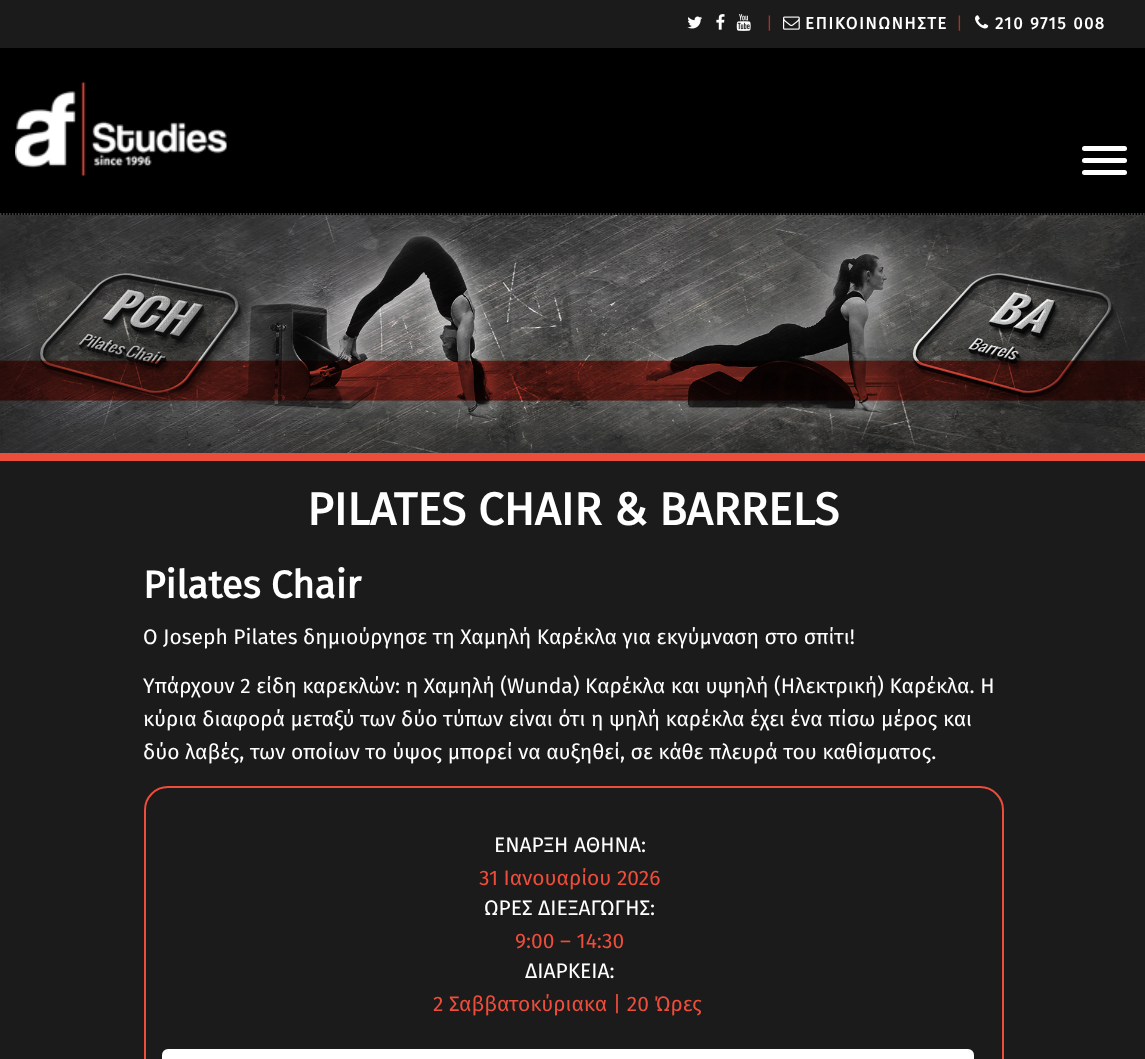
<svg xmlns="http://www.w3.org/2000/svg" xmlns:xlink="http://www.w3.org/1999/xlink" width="1145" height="1059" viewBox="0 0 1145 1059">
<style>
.cls-1{font:16.75px Fira Sans;fill:#a43426}
.cls-2{font:bold 16.75px Fira Sans;letter-spacing:1.5px;fill:#ffffff}
.cls-3{font:bold 45.6px Fira Sans;fill:#ffffff}
.cls-4{font:bold 38.5px Fira Sans;fill:#ffffff}
.cls-5{font:21px Fira Sans;fill:#ffffff}
.cls-6{font:21px Fira Sans;fill:#ed4d3b}
</style>
<rect width="100%" height="100%" fill="#1b1b1b"/>
<image xlink:href="image0.png" x="687" y="16" width="15" height="13"/>
<image xlink:href="image1.png" x="716" y="14" width="9" height="16"/>
<image xlink:href="image2.png" x="736" y="14" width="15" height="17"/>
<image xlink:href="image3.png" x="783" y="16" width="17" height="14"/>
<image xlink:href="image4.png" x="975" y="15" width="14" height="14"/>
<rect fill="#000000" x="0" y="48" width="1145" height="167"/>
<path fill="none" stroke="#525252" stroke-width="1.5" stroke-dasharray="1.5 1.5" d="M0 214H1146"/>
<image xlink:href="image5.png" x="15" y="82" width="212" height="94"/>
<rect fill="#ffffff" x="1082" y="146" width="45" height="5" rx="2.5"/>
<rect fill="#ffffff" x="1082" y="158" width="45" height="5" rx="2.5"/>
<rect fill="#ffffff" x="1082" y="170" width="45" height="5" rx="2.5"/>
<rect fill="#ed4d3b" x="0" y="453" width="1145" height="8"/>
<image xlink:href="image6.png" x="0" y="215" width="1145" height="238"/>
<rect fill="none" stroke="#ed4d3b" stroke-width="2" x="145" y="787" width="858" height="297" rx="23"/>
<rect fill="#ffffff" x="162" y="1049" width="812" height="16" rx="6"/>
<text class="cls-1" x="766" y="29">|</text>
<text class="cls-2" x="805" y="29">ΕΠΙΚΟΙΝΩΝΗΣΤΕ</text>
<text class="cls-1" x="956" y="29">|</text>
<text class="cls-2" x="995" y="29">210 9715 008</text>
<text class="cls-3" x="307" y="525">PILATES CHAIR &amp; BARRELS</text>
<text class="cls-4" x="143" y="598">Pilates Chair</text>
<text class="cls-5" x="143" y="644">Ο Joseph Pilates δημιούργησε τη Χαμηλή Καρέκλα για εκγύμναση στο σπίτι!</text>
<text class="cls-5"><tspan x="143" y="693">Υπάρχουν 2 είδη καρεκλών: η Χαμηλή (Wunda) Καρέκλα και υψηλή (Ηλεκτρική) Καρέκλα. Η</tspan><tspan x="143" y="726">κύρια διαφορά μεταξύ των δύο τύπων είναι ότι η ψηλή καρέκλα έχει ένα πίσω μέρος και</tspan><tspan x="143" y="759">δύο λαβές, των οποίων το ύψος μπορεί να αυξηθεί, σε κάθε πλευρά του καθίσματος.</tspan></text>
<text class="cls-5" x="494" y="852">ΕΝΑΡΞΗ ΑΘΗΝΑ:</text>
<text class="cls-6" x="479" y="885">31 Ιανουαρίου 2026</text>
<text class="cls-5" x="484" y="915">ΩΡΕΣ ΔΙΕΞΑΓΩΓΗΣ:</text>
<text class="cls-6" x="515" y="948">9:00 – 14:30</text>
<text class="cls-5" x="525" y="978">ΔΙΑΡΚΕΙΑ:</text>
<text class="cls-6" x="433" y="1011">2 Σαββατοκύριακα | 20 Ώρες</text>
</svg>
